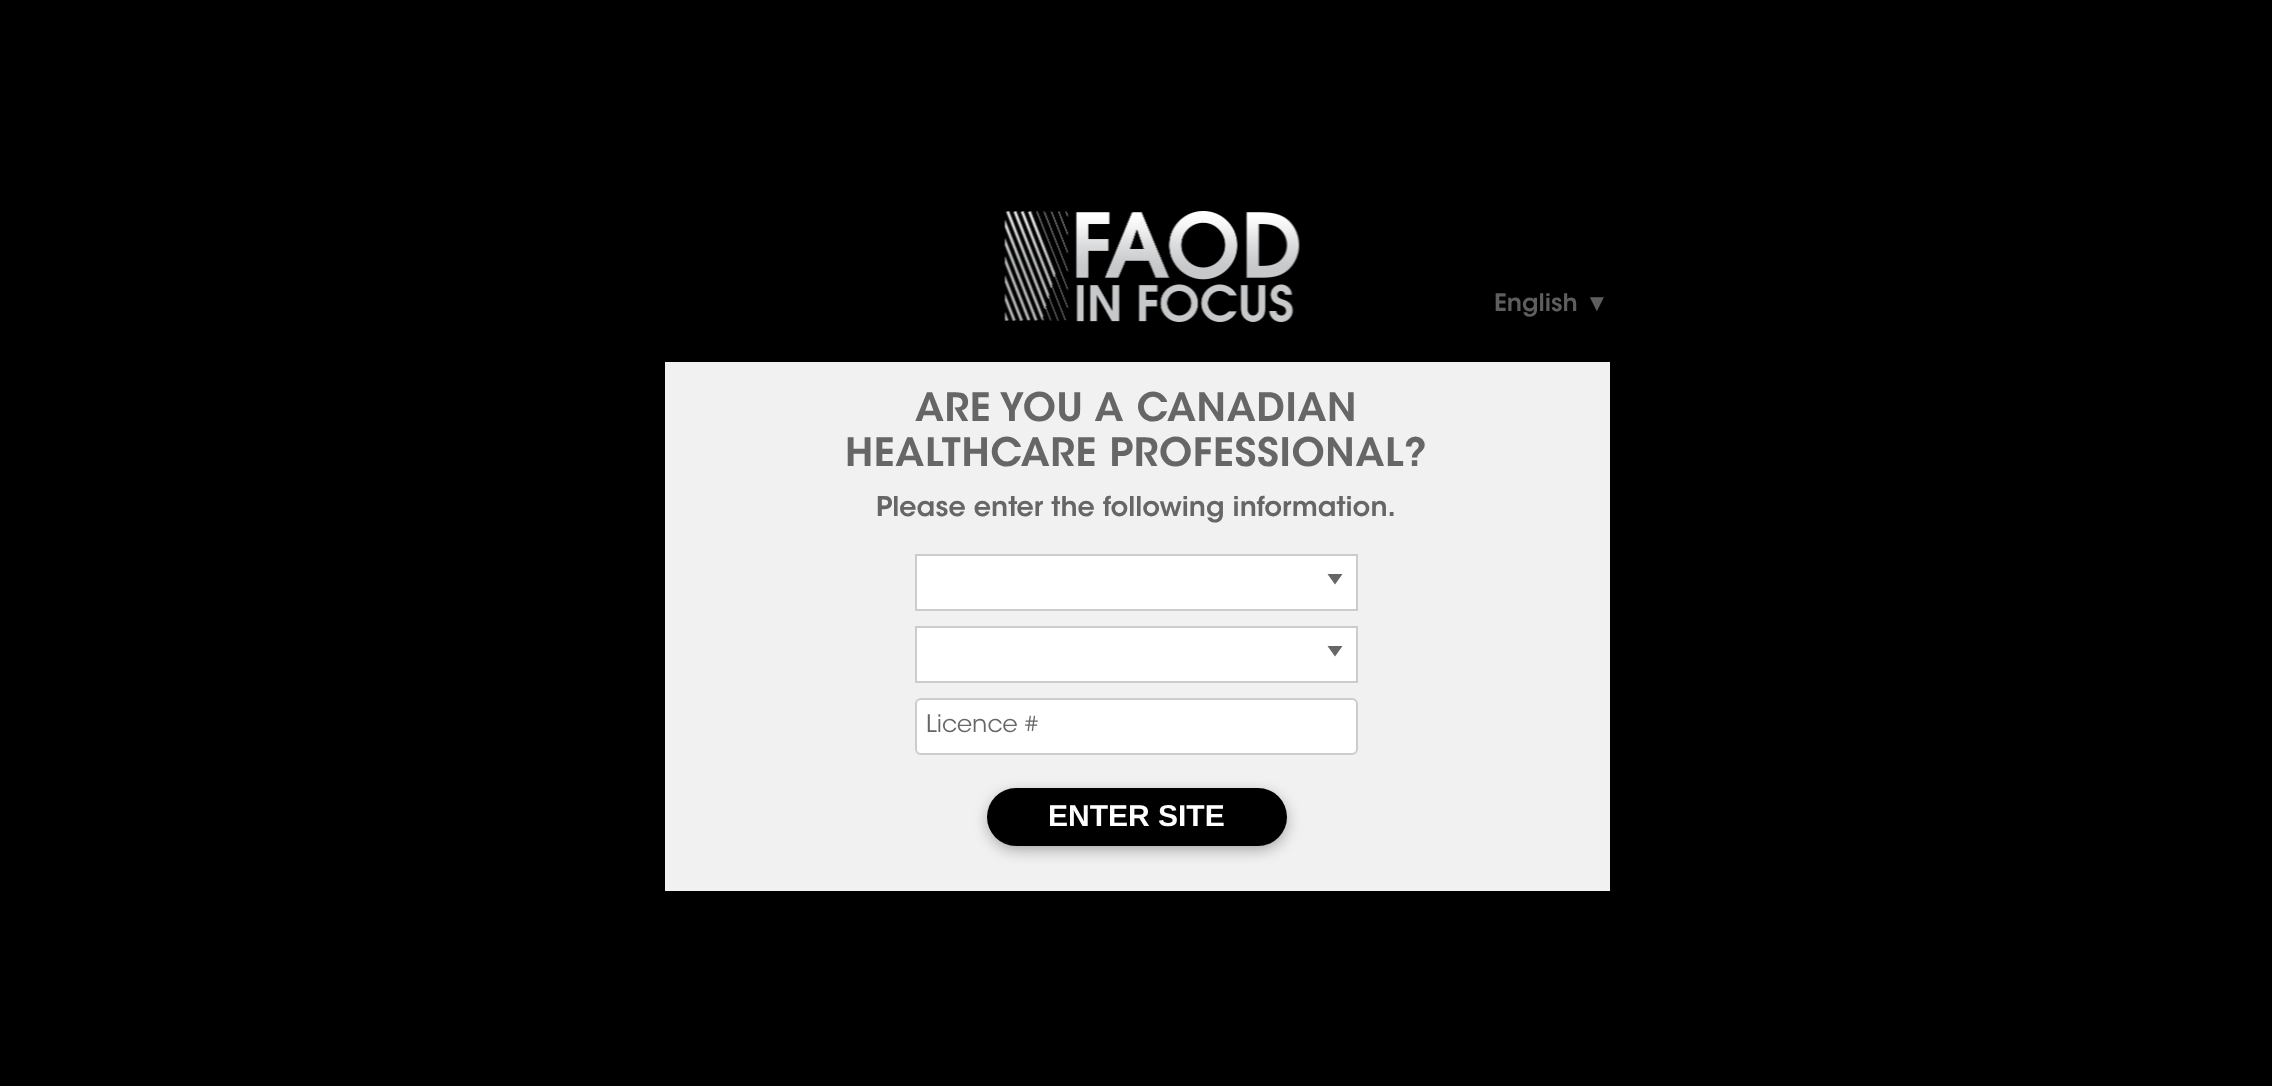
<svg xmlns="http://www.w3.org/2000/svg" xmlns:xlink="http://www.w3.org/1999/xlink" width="2272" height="1086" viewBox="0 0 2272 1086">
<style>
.cls-1{font:600 24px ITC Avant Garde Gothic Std;fill:#5f5e5e}
.cls-2{font:bold 24px Liberation Sans;fill:#5f5e5e}
.cls-3{font:600 39px ITC Avant Garde Gothic Std;letter-spacing:0.7px;fill:#666666}
.cls-4{font:600 27px ITC Avant Garde Gothic Std;fill:#666666}
.cls-5{font:300 24px ITC Avant Garde Gothic Std;fill:#666666}
.cls-6{font:bold 30px Liberation Sans;fill:#ffffff}
</style>
<rect width="100%" height="100%" fill="#000000"/>
<rect fill="#f1f1f1" x="665" y="362" width="945" height="529"/>
<image xlink:href="image0.png" x="1004" y="211" width="296" height="111"/>
<rect fill="#ffffff" stroke="#cccccc" stroke-width="2" x="916" y="555" width="441" height="55"/>
<path fill="#666666" d="M1327.5 574H1342.5L1335 584.5Z"/>
<rect fill="#ffffff" stroke="#cccccc" stroke-width="2" x="916" y="627" width="441" height="55"/>
<path fill="#666666" d="M1327.5 646H1342.5L1335 656.5Z"/>
<rect fill="#ffffff" stroke="#cccccc" stroke-width="2" x="916" y="699" width="441" height="55" rx="5"/>
<rect fill="#050505" fill-opacity="0.35" filter="blur(7.5px)" x="989" y="794" width="297" height="55" rx="27.5"/>
<rect fill="#000000" x="987" y="788" width="300" height="58" rx="29"/>
<text class="cls-1" x="1494" y="311">English</text>
<text class="cls-2" x="1585" y="311">▼</text>
<text class="cls-3" x="915" y="421">ARE YOU A CANADIAN</text>
<text class="cls-3" x="845" y="466">HEALTHCARE PROFESSIONAL?</text>
<text class="cls-4" x="876" y="516">Please enter the following information.</text>
<text class="cls-5" x="926" y="732">Licence #</text>
<text class="cls-6" x="1048" y="826">ENTER SITE</text>
</svg>
